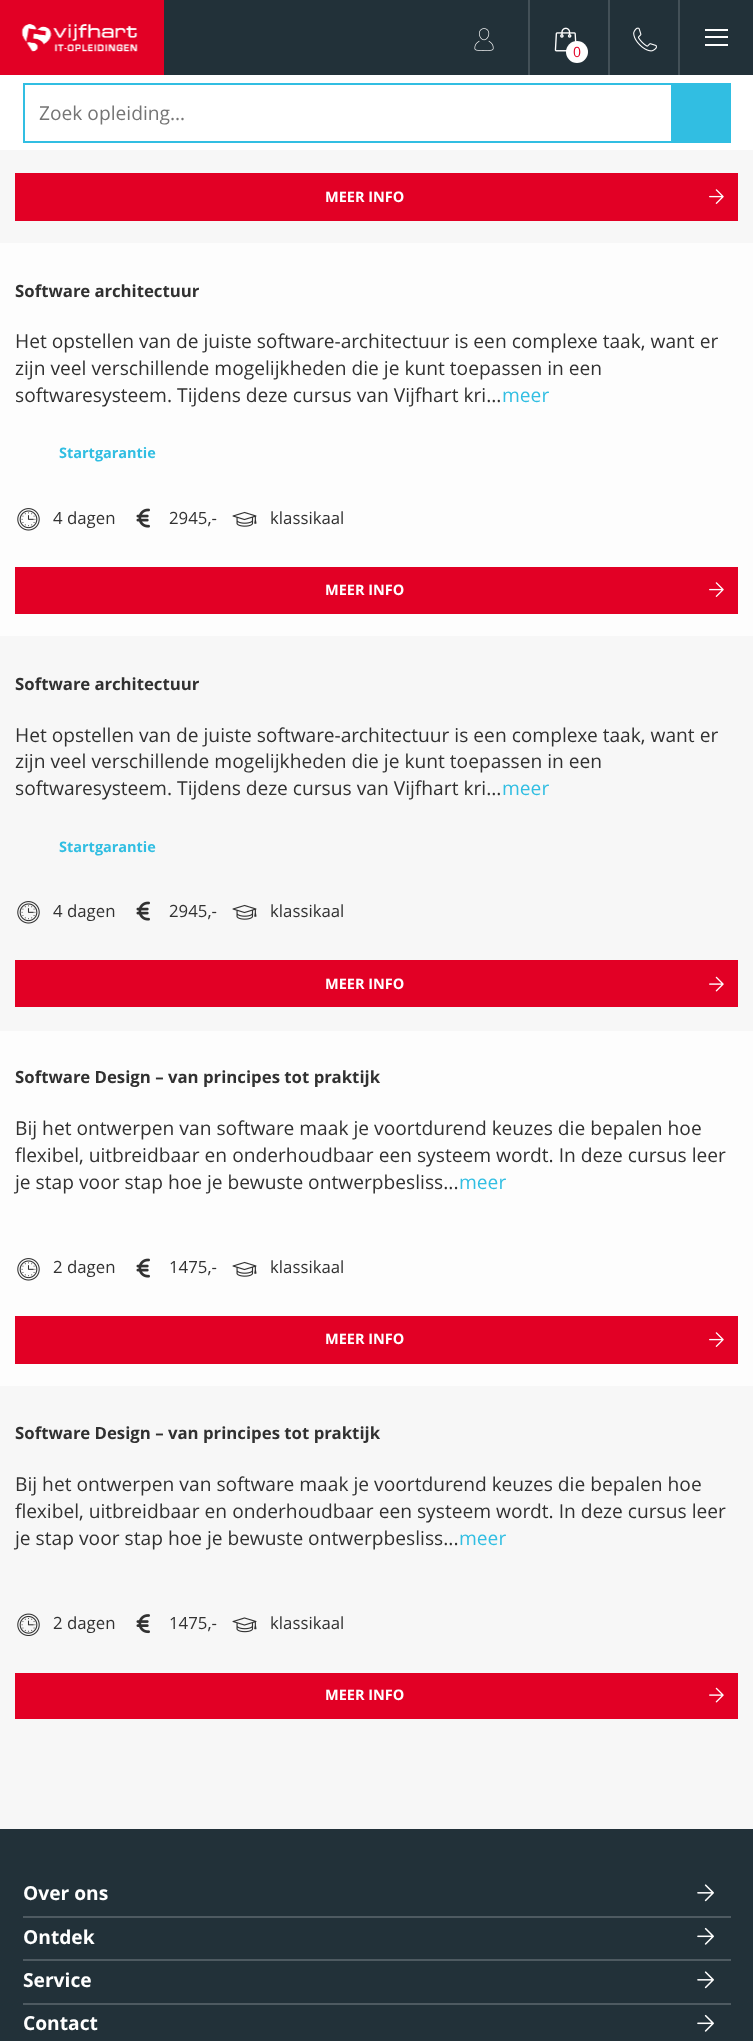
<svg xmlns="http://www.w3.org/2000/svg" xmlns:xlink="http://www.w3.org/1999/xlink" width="753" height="2041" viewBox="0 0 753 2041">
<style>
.cls-1{font:14px Open Sans;fill:#e20025}
.cls-2{font:19.2px Open Sans;fill:#757575}
.cls-3{font:bold 14.5px Open Sans;fill:#ffffff}
.cls-4{font:bold 16.8px Open Sans;fill:#313131}
.cls-5{font:19.2px Open Sans;fill:#313131}
.cls-6{font:19.2px Open Sans;fill:#31bee2}
.cls-7{font:bold 14.5px Open Sans;fill:#31bee2}
.cls-8{font:16.8px Open Sans;fill:#313131}
.cls-9{font:bold 19.2px Open Sans;fill:#ffffff}
</style>
<rect width="100%" height="100%" fill="#f7f7f7"/>
<rect fill="#223139" x="164" y="0" width="589" height="75"/>
<rect fill="#e20025" x="0" y="0" width="164" height="75"/>
<image xlink:href="image0.png" x="21" y="24" width="117" height="28"/>
<image xlink:href="image1.png" x="474" y="28" width="20" height="23"/>
<rect fill="#435057" x="608" y="0" width="2" height="75"/>
<image xlink:href="image2.png" x="633" y="27" width="24" height="25"/>
<rect fill="#435057" x="528" y="0" width="2" height="75"/>
<image xlink:href="image3.png" x="554" y="27" width="23" height="25"/>
<circle fill="#ffffff" cx="577" cy="52" r="11"/>
<rect fill="#435057" x="678" y="0" width="2" height="75"/>
<rect fill="#ffffff" x="705" y="29" width="23" height="2"/>
<rect fill="#ffffff" x="705" y="36" width="23" height="2"/>
<rect fill="#ffffff" x="705" y="44" width="23" height="2"/>
<rect fill="#ffffff" x="0" y="75" width="753" height="75"/>
<rect fill="none" stroke="#31bee2" stroke-width="2" x="24" y="84" width="706" height="58"/>
<rect fill="#31bee2" x="671" y="85" width="58" height="56"/>
<rect fill="#e20025" x="15" y="173" width="723" height="48"/>
<image xlink:href="image4.png" x="709" y="189" width="15" height="15"/>
<rect fill="#fdfdfd" x="0" y="243" width="753" height="393"/>
<image xlink:href="image5.png" x="17" y="508" width="23" height="23"/>
<image xlink:href="image6.png" x="136" y="508" width="14" height="20"/>
<image xlink:href="image7.png" x="232" y="511" width="25" height="16"/>
<rect fill="#e20025" x="15" y="567" width="723" height="47"/>
<image xlink:href="image4.png" x="709" y="582" width="15" height="15"/>
<image xlink:href="image8.png" x="17" y="901" width="23" height="23"/>
<image xlink:href="image9.png" x="136" y="901" width="14" height="20"/>
<image xlink:href="image10.png" x="232" y="904" width="25" height="16"/>
<rect fill="#e20025" x="15" y="960" width="723" height="47"/>
<image xlink:href="image11.png" x="709" y="976" width="15" height="16"/>
<rect fill="#fdfdfd" x="0" y="1031" width="753" height="355"/>
<image xlink:href="image5.png" x="17" y="1258" width="23" height="23"/>
<image xlink:href="image6.png" x="136" y="1258" width="14" height="20"/>
<image xlink:href="image7.png" x="232" y="1261" width="25" height="16"/>
<rect fill="#e20025" x="15" y="1316" width="723" height="48"/>
<image xlink:href="image4.png" x="709" y="1332" width="15" height="15"/>
<image xlink:href="image12.png" x="17" y="1613" width="23" height="23"/>
<image xlink:href="image13.png" x="136" y="1614" width="14" height="20"/>
<image xlink:href="image14.png" x="232" y="1617" width="25" height="16"/>
<rect fill="#e20025" x="15" y="1673" width="723" height="46"/>
<image xlink:href="image11.png" x="709" y="1687" width="15" height="16"/>
<rect fill="#223139" x="0" y="1829" width="753" height="212"/>
<rect fill="#4e5a61" x="23" y="1916" width="708" height="2"/>
<image xlink:href="image15.png" x="697" y="1884" width="17" height="18"/>
<rect fill="#4e5a61" x="23" y="1959" width="708" height="2"/>
<image xlink:href="image16.png" x="697" y="1927" width="17" height="18"/>
<rect fill="#4e5a61" x="23" y="2003" width="708" height="2"/>
<image xlink:href="image15.png" x="697" y="1971" width="17" height="18"/>
<image xlink:href="image16.png" x="697" y="2014" width="17" height="18"/>
<text class="cls-1" x="573" y="57">0</text>
<text class="cls-2" x="39" y="120">Zoek opleiding…</text>
<text class="cls-3" x="325" y="202">MEER INFO</text>
<text class="cls-4" x="15" y="297">Software architectuur</text>
<text class="cls-5"><tspan x="15" y="348">Het opstellen van de juiste software-architectuur is een complexe taak, want er</tspan><tspan x="15" y="375">zijn veel verschillende mogelijkheden die je kunt toepassen in een</tspan><tspan x="15" y="402">softwaresysteem. Tijdens deze cursus van Vijfhart kri...</tspan></text>
<text class="cls-6" x="502" y="402">meer</text>
<text class="cls-7" x="59" y="458">Startgarantie</text>
<text class="cls-8" x="53" y="524">4 dagen</text>
<text class="cls-8" x="169" y="524">2945,-</text>
<text class="cls-8" x="270" y="524">klassikaal</text>
<text class="cls-3" x="325" y="595">MEER INFO</text>
<text class="cls-4" x="15" y="690">Software architectuur</text>
<text class="cls-5"><tspan x="15" y="742">Het opstellen van de juiste software-architectuur is een complexe taak, want er</tspan><tspan x="15" y="768">zijn veel verschillende mogelijkheden die je kunt toepassen in een</tspan><tspan x="15" y="795">softwaresysteem. Tijdens deze cursus van Vijfhart kri...</tspan></text>
<text class="cls-6" x="502" y="795">meer</text>
<text class="cls-7" x="59" y="852">Startgarantie</text>
<text class="cls-8" x="53" y="917">4 dagen</text>
<text class="cls-8" x="169" y="917">2945,-</text>
<text class="cls-8" x="270" y="917">klassikaal</text>
<text class="cls-3" x="325" y="989">MEER INFO</text>
<text class="cls-4" x="15" y="1083">Software Design – van principes tot praktijk</text>
<text class="cls-5"><tspan x="15" y="1135">Bij het ontwerpen van software maak je voortdurend keuzes die bepalen hoe</tspan><tspan x="15" y="1162">flexibel, uitbreidbaar en onderhoudbaar een systeem wordt. In deze cursus leer</tspan><tspan x="15" y="1189">je stap voor stap hoe je bewuste ontwerpbesliss...</tspan></text>
<text class="cls-6" x="459" y="1189">meer</text>
<text class="cls-8" x="53" y="1273">2 dagen</text>
<text class="cls-8" x="169" y="1273">1475,-</text>
<text class="cls-8" x="270" y="1273">klassikaal</text>
<text class="cls-3" x="325" y="1344">MEER INFO</text>
<text class="cls-4" x="15" y="1439">Software Design – van principes tot praktijk</text>
<text class="cls-5"><tspan x="15" y="1491">Bij het ontwerpen van software maak je voortdurend keuzes die bepalen hoe</tspan><tspan x="15" y="1518">flexibel, uitbreidbaar en onderhoudbaar een systeem wordt. In deze cursus leer</tspan><tspan x="15" y="1545">je stap voor stap hoe je bewuste ontwerpbesliss...</tspan></text>
<text class="cls-6" x="459" y="1545">meer</text>
<text class="cls-8" x="53" y="1629">2 dagen</text>
<text class="cls-8" x="169" y="1629">1475,-</text>
<text class="cls-8" x="270" y="1629">klassikaal</text>
<text class="cls-3" x="325" y="1700">MEER INFO</text>
<text class="cls-9" x="23" y="1900">Over ons</text>
<text class="cls-9" x="23" y="1944">Ontdek</text>
<text class="cls-9" x="23" y="1987">Service</text>
<text class="cls-9" x="23" y="2030">Contact</text>
</svg>
